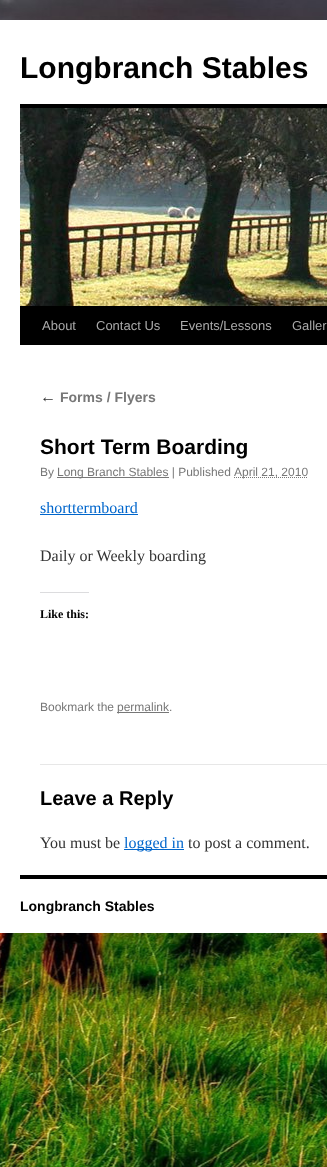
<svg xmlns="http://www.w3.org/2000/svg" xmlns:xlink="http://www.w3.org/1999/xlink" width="327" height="1167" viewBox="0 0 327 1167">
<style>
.cls-1{font:bold 30px Liberation Sans;fill:#000000}
.cls-2{font:13px Liberation Sans;fill:#aaaaaa}
.cls-3{font:italic 16px Liberation Serif;fill:#333333}
.cls-4{font:bold 14px Liberation Sans;fill:#777777}
.cls-5{font:bold 21px Liberation Sans;fill:#000000}
.cls-6{font:12px Liberation Sans;fill:#777777}
.cls-7{font:16px Liberation Serif;fill:#0066cc}
.cls-8{font:16px Liberation Serif;fill:#333333}
.cls-9{font:bold 12px Liberation Serif;fill:#000000}
.cls-10{font:bold 20px Liberation Sans;fill:#000000}
.cls-11{font:bold 14px Liberation Sans;fill:#000000}
</style>
<rect width="100%" height="100%" fill="#ffffff"/>
<image xlink:href="image0.png" x="0" y="0" width="327" height="1167"/>
<rect fill="#ffffff" x="0" y="20" width="327" height="913"/>
<rect fill="#000000" x="20" y="104" width="307" height="4"/>
<rect fill="#000000" x="20" y="306" width="307" height="39"/>
<image xlink:href="image1.png" x="20" y="108" width="307" height="198"/>
<rect fill="#777777" x="57" y="477" width="112" height="1"/>
<path fill="none" stroke="#777777" stroke-dasharray="1 1" d="M234 477.5H308"/>
<rect fill="#0066cc" x="40" y="514" width="98" height="1"/>
<rect fill="#dcdcde" x="40" y="592" width="49" height="1"/>
<rect fill="#777777" x="117" y="712" width="52" height="1"/>
<rect fill="#e7e7e7" x="40" y="764" width="287" height="1"/>
<rect fill="#0066cc" x="124" y="849" width="60" height="1"/>
<rect fill="#000000" x="20" y="875" width="307" height="4"/>
<text class="cls-1" x="20" y="78">Longbranch Stables</text>
<text class="cls-2" x="42" y="330">About</text>
<text class="cls-2" x="96" y="330">Contact Us</text>
<text class="cls-2" x="180" y="330">Events/Lessons</text>
<text class="cls-2" x="292" y="330">Galler</text>
<text class="cls-3" x="40" y="402">←</text>
<text class="cls-4" x="60" y="402">Forms / Flyers</text>
<text class="cls-5" x="40" y="454">Short Term Boarding</text>
<text class="cls-6" x="40" y="476">By</text>
<text class="cls-6" x="57" y="476">Long Branch Stables | Published</text>
<text class="cls-6" x="234" y="476">April 21, 2010</text>
<text class="cls-7" x="40" y="513">shorttermboard</text>
<text class="cls-8" x="40" y="561">Daily or Weekly boarding</text>
<text class="cls-9" x="40" y="618">Like this:</text>
<text class="cls-6" x="40" y="711">Bookmark the</text>
<text class="cls-6" x="117" y="711">permalink.</text>
<text class="cls-10" x="40" y="805">Leave a Reply</text>
<text class="cls-8" x="40" y="848">You must be</text>
<text class="cls-7" x="124" y="848">logged in</text>
<text class="cls-8" x="188" y="848">to post a comment.</text>
<text class="cls-11" x="20" y="911">Longbranch Stables</text>
</svg>
